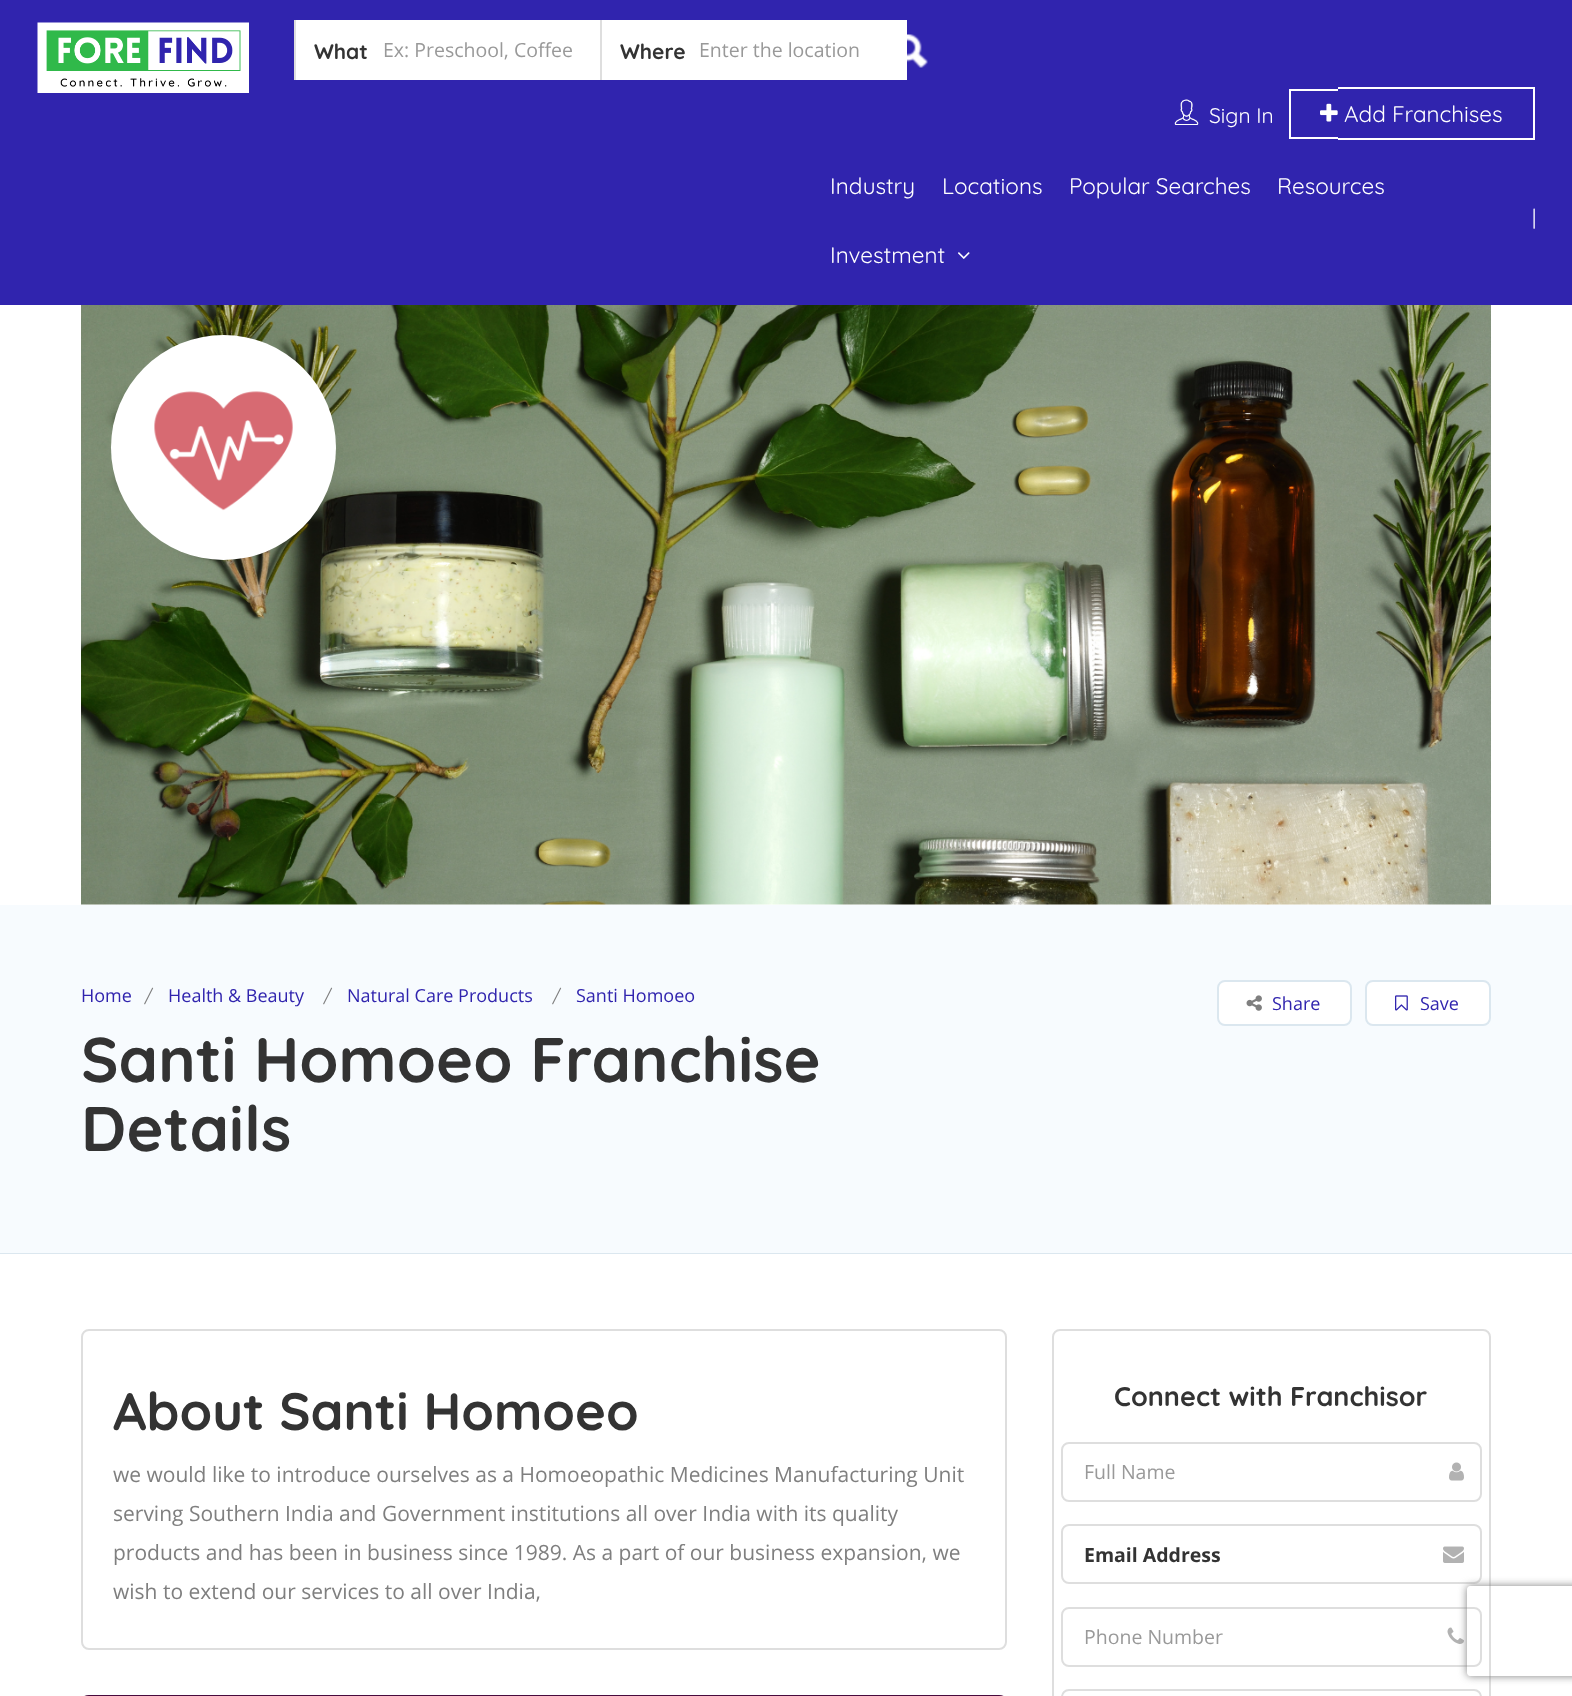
<svg xmlns="http://www.w3.org/2000/svg" xmlns:xlink="http://www.w3.org/1999/xlink" width="1572" height="1696" viewBox="0 0 1572 1696">
<style>
.cls-1{font:bold 21px Quicksand;fill:#333333}
.cls-2{font:19.5px Open Sans;fill:#999999}
.cls-3{font:21px Quicksand;fill:#ffffff}
.cls-4{font:22.5px Quicksand;fill:#ffffff}
.cls-5{font:18px Open Sans;fill:#3024ae}
.cls-6{font:18px Quicksand;fill:#7f7f7f}
.cls-7{font:bold 63px Quicksand;fill:#333333}
.cls-8{font:bold 52.5px Quicksand;fill:#333333}
.cls-9{font:21px Open Sans;fill:#7f7f7f}
.cls-10{font:bold 27px Quicksand;fill:#333333}
.cls-11{font:bold 19.5px Open Sans;fill:#333333}
</style>
<defs>
<clipPath id="clip1"><path d="M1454 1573H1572V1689H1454ZM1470 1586H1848C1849.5 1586 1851 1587.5 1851 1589V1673C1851 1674.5 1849.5 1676 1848 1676H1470C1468.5 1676 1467 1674.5 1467 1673V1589C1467 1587.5 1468.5 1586 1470 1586Z" clip-rule="evenodd"/></clipPath>
</defs>
<rect width="100%" height="100%" fill="#ffffff"/>
<rect fill="#3024ae" x="0" y="0" width="1572" height="305"/>
<image xlink:href="image0.png" x="37" y="22" width="212" height="71"/>
<rect fill="#ffffff" x="296" y="20" width="304" height="60"/>
<rect fill="#dedede" x="294" y="20" width="2" height="60"/>
<rect fill="#ffffff" x="602" y="20" width="305" height="60"/>
<rect fill="#dedede" x="600" y="20" width="2" height="60"/>
<image xlink:href="image1.png" x="907" y="34" width="21" height="34"/>
<image xlink:href="image2.png" x="1174" y="99" width="25" height="26"/>
<rect fill="#ffffff" x="1289" y="89" width="49" height="2"/>
<rect fill="#ffffff" x="1289" y="137" width="49" height="2"/>
<rect fill="#ffffff" x="1289" y="89" width="2" height="49"/>
<rect fill="#ffffff" x="1338" y="87" width="197" height="2"/>
<rect fill="#ffffff" x="1533" y="87" width="2" height="53"/>
<rect fill="#ffffff" x="1338" y="138" width="197" height="2"/>
<image xlink:href="image3.png" x="1320" y="103" width="18" height="19"/>
<image xlink:href="image4.png" x="958" y="252" width="12" height="7"/>
<image xlink:href="image5.png" x="81" y="305" width="1410" height="600"/>
<circle fill="#ffffff" cx="223.5" cy="447.5" r="112.5"/>
<image xlink:href="image6.png" x="154" y="391" width="139" height="120"/>
<rect fill="#f7fbfe" x="0" y="905" width="1572" height="348"/>
<rect fill="#dbe7ef" x="0" y="1253" width="1572" height="1"/>
<rect fill="#ffffff" stroke="#dbe7ef" stroke-width="2" x="1218" y="981" width="133" height="44" rx="7"/>
<image xlink:href="image7.png" x="1246" y="995" width="16" height="16"/>
<rect fill="#ffffff" stroke="#dbe7ef" stroke-width="2" x="1366" y="981" width="124" height="44" rx="7"/>
<image xlink:href="image8.png" x="1395" y="995" width="13" height="16"/>
<rect fill="none" stroke="#dedede" stroke-width="2" x="82" y="1330" width="924" height="319" rx="7"/>
<rect fill="none" stroke="#490b3d" stroke-width="2" x="82" y="1696" width="924" height="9" rx="7"/>
<rect fill="none" stroke="#dedede" stroke-width="2" x="1053" y="1330" width="437" height="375" rx="7"/>
<rect fill="none" stroke="#dedede" stroke-width="2" x="1062" y="1443" width="419" height="58" rx="7"/>
<image xlink:href="image9.png" x="1449" y="1462" width="15" height="19"/>
<rect fill="none" stroke="#dedede" stroke-width="2" x="1062" y="1525" width="419" height="58" rx="7"/>
<image xlink:href="image10.png" x="1443" y="1546" width="21" height="17"/>
<rect fill="none" stroke="#dedede" stroke-width="2" x="1062" y="1608" width="419" height="58" rx="7"/>
<image xlink:href="image11.png" x="1447" y="1627" width="17" height="17"/>
<rect fill="none" stroke="#dedede" stroke-width="2" x="1062" y="1690" width="419" height="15" rx="7"/>
<g clip-path="url(#clip1)">
<rect fill="#808080" filter="blur(4px)" x="1467" y="1586" width="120" height="90" rx="3"/>
</g>
<text class="cls-1" x="314" y="59">What</text>
<text class="cls-2" x="383" y="57">Ex: Preschool, Coffee</text>
<text class="cls-1" x="620" y="59">Where</text>
<text class="cls-2" x="699" y="57">Enter the location</text>
<text class="cls-3" x="1209" y="123">Sign In</text>
<text class="cls-4" x="1344" y="122">Add Franchises</text>
<text class="cls-4" x="830" y="194">Industry</text>
<text class="cls-4" x="942" y="194">Locations</text>
<text class="cls-4" x="1069" y="194">Popular Searches</text>
<text class="cls-4" x="1277" y="194">Resources</text>
<text class="cls-4" x="830" y="263">Investment</text>
<text class="cls-3" x="1532" y="225">|</text>
<text class="cls-5" x="81" y="1002">Home</text>
<text class="cls-6" x="144" y="1002">/</text>
<text class="cls-5" x="168" y="1002">Health &amp; Beauty</text>
<text class="cls-6" x="323" y="1002">/</text>
<text class="cls-5" x="347" y="1002">Natural Care Products</text>
<text class="cls-6" x="552" y="1002">/</text>
<text class="cls-5" x="576" y="1002">Santi Homoeo</text>
<text class="cls-7"><tspan x="81" y="1082">Santi Homoeo Franchise</tspan><tspan x="81" y="1151">Details</tspan></text>
<text class="cls-5" x="1272" y="1010">Share</text>
<text class="cls-5" x="1420" y="1010">Save</text>
<text class="cls-8" x="113" y="1430">About Santi Homoeo</text>
<text class="cls-9"><tspan x="113" y="1482">we would like to introduce ourselves as a Homoeopathic Medicines Manufacturing Unit</tspan><tspan x="113" y="1521">serving Southern India and Government institutions all over India with its quality</tspan><tspan x="113" y="1560">products and has been in business since 1989. As a part of our business expansion, we</tspan><tspan x="113" y="1599">wish to extend our services to all over India,</tspan></text>
<text class="cls-10" x="1114" y="1406">Connect with Franchisor</text>
<text class="cls-2" x="1084" y="1479">Full Name</text>
<text class="cls-11" x="1084" y="1562">Email Address</text>
<text class="cls-2" x="1084" y="1644">Phone Number</text>
</svg>
